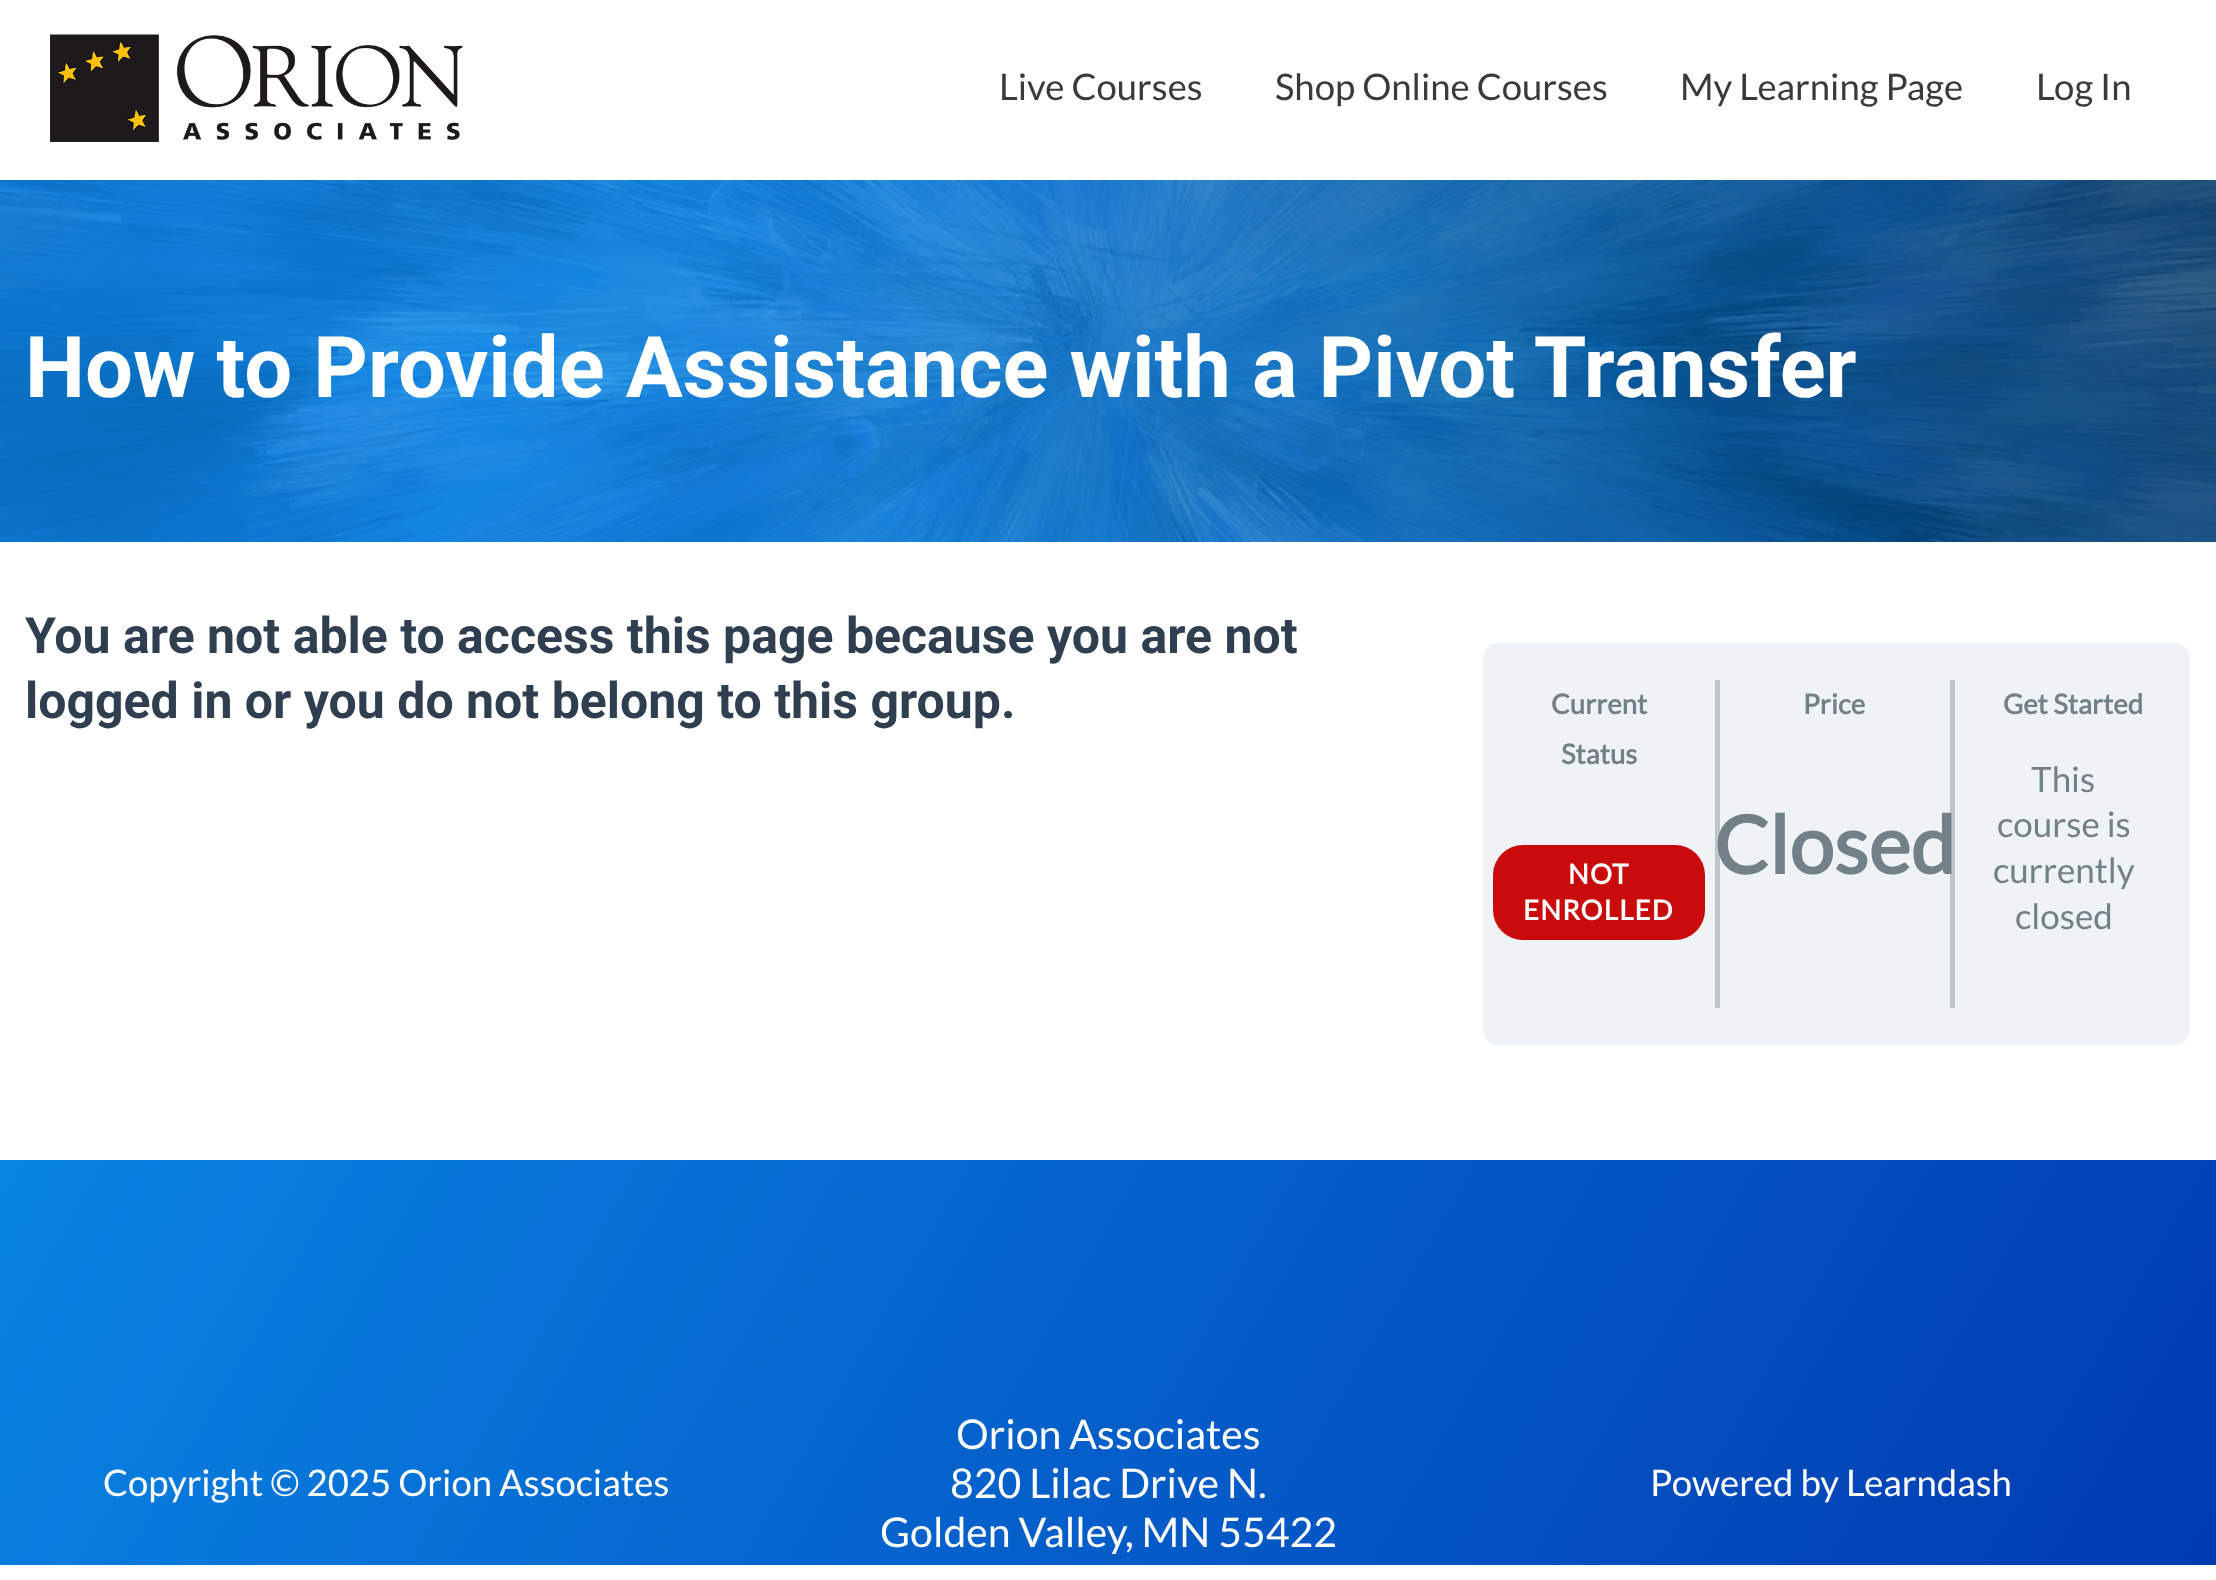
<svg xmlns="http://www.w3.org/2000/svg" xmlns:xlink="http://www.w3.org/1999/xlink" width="2216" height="1580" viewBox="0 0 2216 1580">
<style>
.cls-1{font:36.5px Lato;fill:#3a3a3a}
.cls-2{font:bold 85px Roboto;fill:#ffffff}
.cls-3{font:bold 50px Roboto;fill:#2f3f50}
.cls-4{font:bold 27.5px Lato;fill:#728188}
.cls-5{font:bold 27.5px Lato;letter-spacing:1.25px;fill:#ffffff}
.cls-6{font:bold 80px Lato;fill:#728188}
.cls-7{font:35px Lato;fill:#728188}
.cls-8{font:36.5px Lato;fill:#ffffff}
.cls-9{font:41px Lato;fill:#ffffff}
</style>
<defs>
<linearGradient id="g1" gradientUnits="userSpaceOnUse" x1="190" y1="832" x2="2028" y2="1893"><stop offset="0" stop-color="#0984e3"/><stop offset="1" stop-color="#003bb1"/></linearGradient>
</defs>
<rect width="100%" height="100%" fill="#ffffff"/>
<image xlink:href="image0.png" x="50" y="34" width="413" height="108"/>
<image xlink:href="image1.png" x="0" y="180" width="2216" height="362"/>
<rect fill="#f0f3f6" x="1483" y="643" width="707" height="402" rx="15"/>
<rect fill="#bec5cb" x="1715" y="680" width="5" height="328"/>
<rect fill="#ca0b0b" x="1493" y="845" width="212" height="95" rx="30"/>
<rect fill="#bec5cb" x="1950" y="680" width="5" height="328"/>
<rect fill="url(#g1)" x="0" y="1160" width="2216" height="405"/>
<text class="cls-1" x="999" y="100">Live Courses</text>
<text class="cls-1" x="1275" y="100">Shop Online Courses</text>
<text class="cls-1" x="1680" y="100">My Learning Page</text>
<text class="cls-1" x="2036" y="100">Log In</text>
<text class="cls-2" x="25" y="397">How to Provide Assistance with a Pivot Transfer</text>
<text class="cls-3"><tspan x="25" y="653">You are not able to access this page because you are not</tspan><tspan x="25" y="718">logged in or you do not belong to this group.</tspan></text>
<text class="cls-4" x="1551" y="714">Current</text>
<text class="cls-4" x="1561" y="764">Status</text>
<text class="cls-5" x="1568" y="884">NOT</text>
<text class="cls-5" x="1523" y="920">ENROLLED</text>
<text class="cls-4" x="1803" y="714">Price</text>
<text class="cls-6" x="1714" y="874">Closed</text>
<text class="cls-4" x="2003" y="714">Get Started</text>
<text class="cls-7" x="2031" y="792">This</text>
<text class="cls-7" x="1997" y="837">course is</text>
<text class="cls-7" x="1993" y="883">currently</text>
<text class="cls-7" x="2015" y="929">closed</text>
<text class="cls-8" x="103" y="1496">Copyright © 2025 Orion Associates</text>
<text class="cls-9" x="956" y="1449">Orion Associates</text>
<text class="cls-9" x="950" y="1498">820 Lilac Drive N.</text>
<text class="cls-9" x="880" y="1547">Golden Valley, MN 55422</text>
<text class="cls-8" x="1650" y="1496">Powered by Learndash</text>
</svg>
